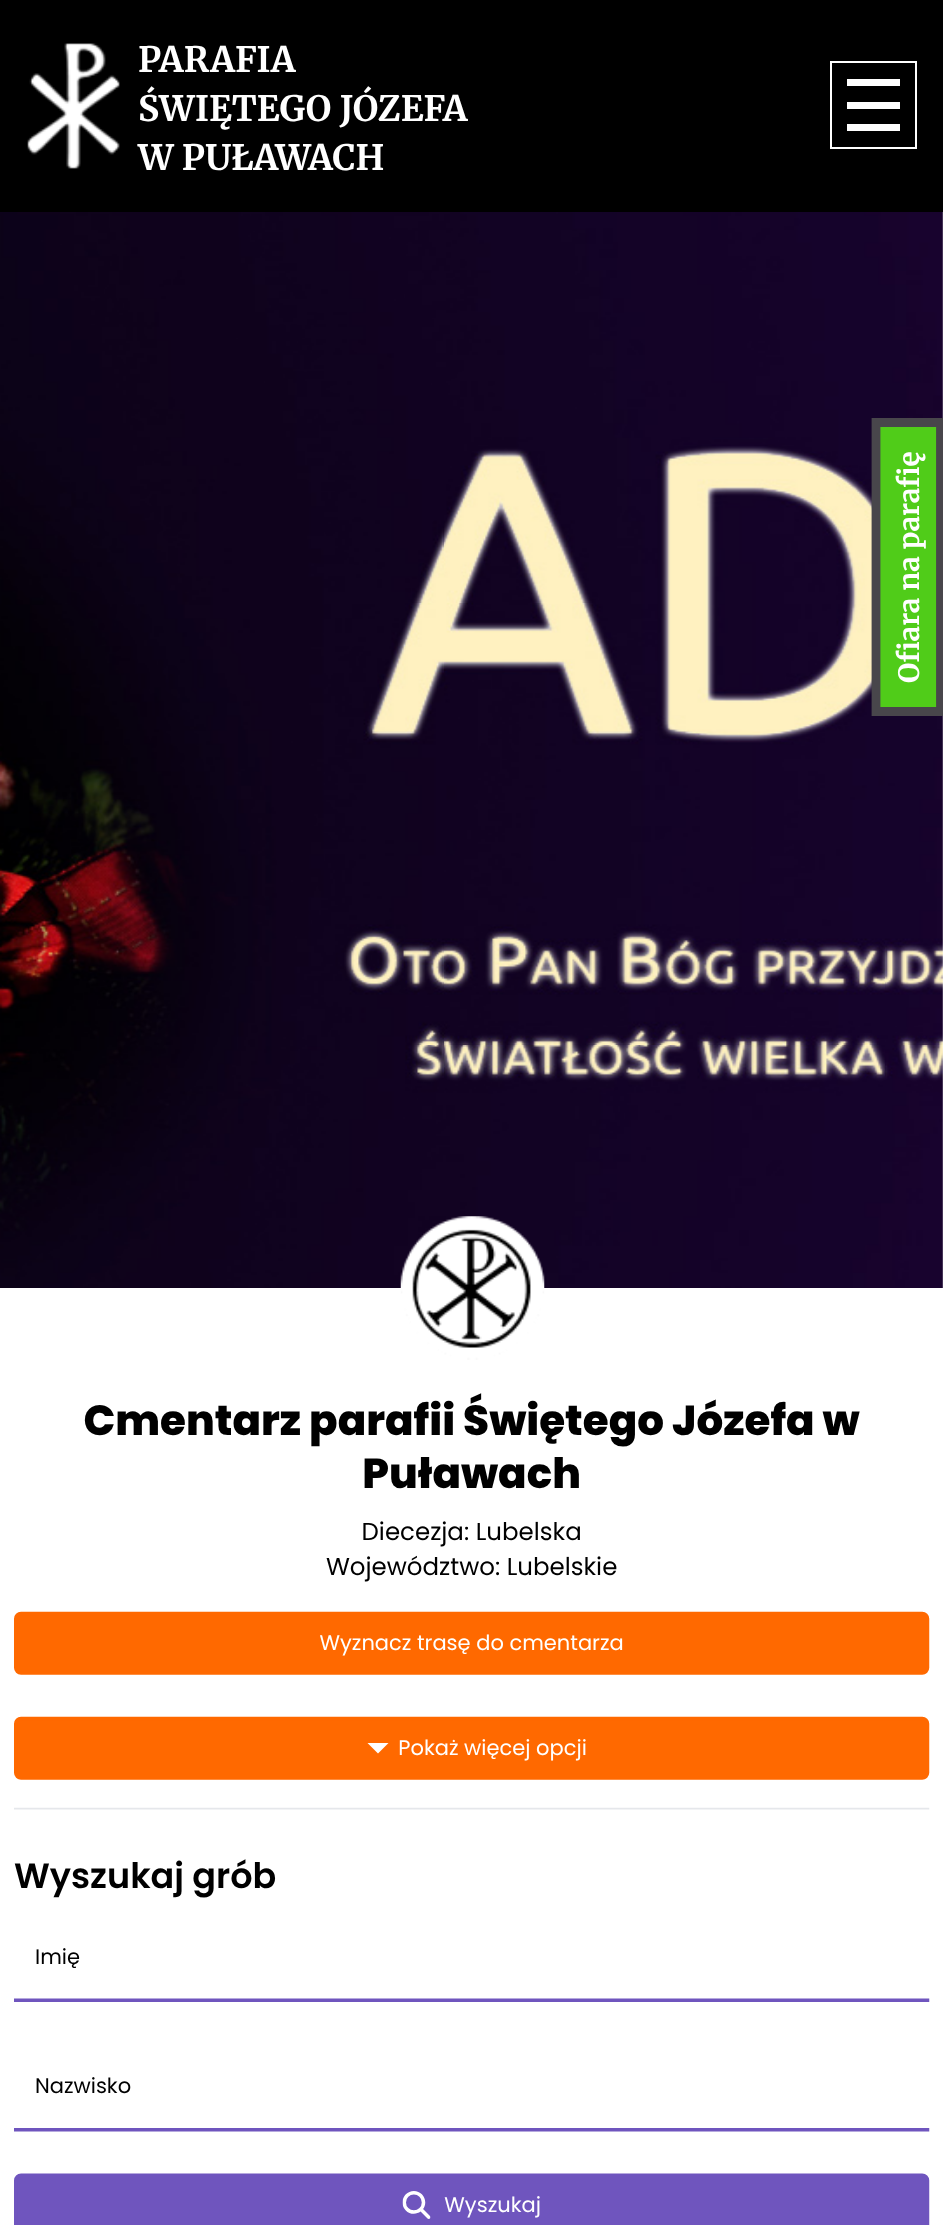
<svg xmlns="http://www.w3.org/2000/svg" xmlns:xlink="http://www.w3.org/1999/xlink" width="943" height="2225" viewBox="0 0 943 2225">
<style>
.cls-1{font:bold 35px Merriweather;fill:#ffffff}
.cls-2{font:bold 28px Merriweather;fill:#ffffff}
</style>
<rect width="100%" height="100%" fill="#ffffff"/>
<rect fill="#000000" x="0" y="0" width="943" height="212"/>
<image xlink:href="image0.png" x="27" y="43" width="93" height="126"/>
<rect fill="none" stroke="#ffffff" stroke-width="2" x="831" y="62" width="85" height="86"/>
<rect fill="#ffffff" x="847" y="79" width="53" height="7"/>
<rect fill="#ffffff" x="847" y="102" width="53" height="7"/>
<rect fill="#ffffff" x="847" y="124" width="53" height="7"/>
<image xlink:href="image1.png" x="0" y="212" width="943" height="1076"/>
<image xlink:href="image2.png" x="400" y="1216" width="145" height="144"/>
<rect fill="#50cc19" x="872" y="418" width="71" height="298"/>
<path fill="none" stroke="#48464b" stroke-width="8.8" d="M876 711.5V422.5H940.5V711.5Z"/>
<image xlink:href="image3.png" x="14" y="1393" width="916" height="832"/>
<text class="cls-1"><tspan x="138" y="72">PARAFIA</tspan><tspan x="138" y="121">ŚWIĘTEGO JÓZEFA</tspan><tspan x="138" y="170">W PUŁAWACH</tspan></text>
<text class="cls-2" x="919" y="683" transform="rotate(-90 919 683)">Ofiara na parafię</text>
</svg>
